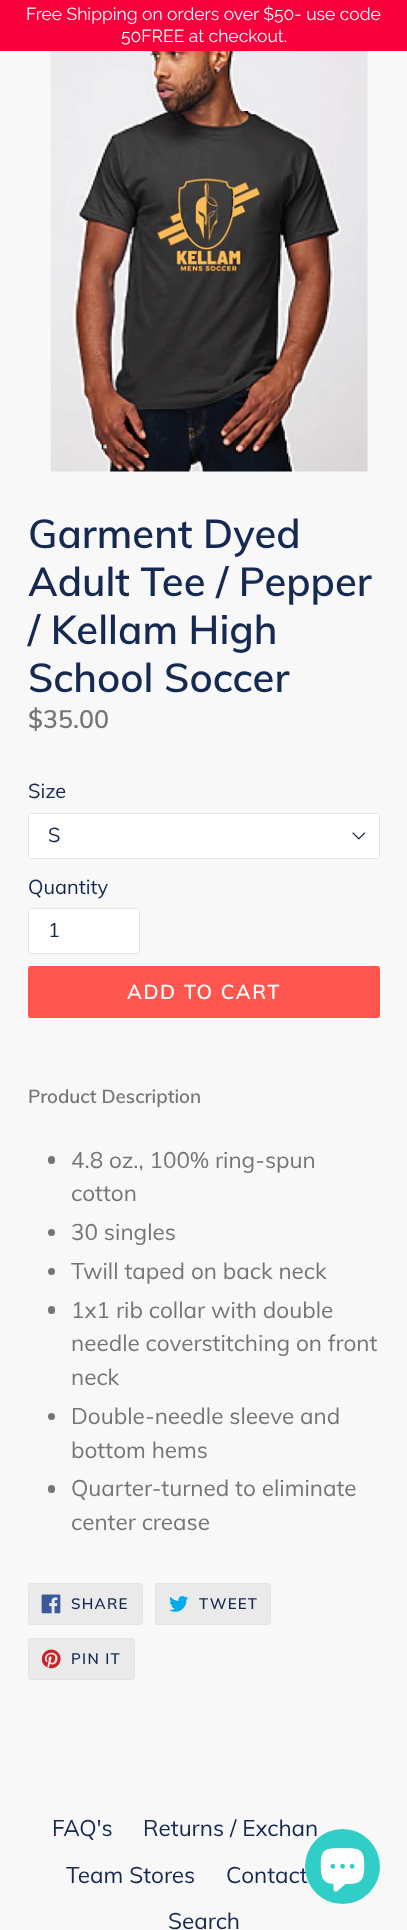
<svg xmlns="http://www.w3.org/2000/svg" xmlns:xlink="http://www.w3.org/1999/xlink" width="407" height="1930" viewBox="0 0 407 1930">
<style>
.cls-1{font:100 17.5px Raleway;fill:#ffffff}
.cls-2{font:600 40px Muli;fill:#162950}
.cls-3{font:600 25px Muli;fill:#757575}
.cls-4{font:20px Muli;fill:#162950}
.cls-5{font:600 20px Muli;letter-spacing:1.6px;fill:#ffffff}
.cls-6{font:600 18.75px Muli;fill:#757575}
.cls-7{font:22.5px Muli;fill:#757575}
.cls-8{font:600 15px Muli;letter-spacing:1.25px;fill:#162950}
.cls-9{font:22.5px Muli;fill:#162950}
</style>
<rect width="100%" height="100%" fill="#f8f8f8"/>
<rect fill="#f7003b" x="0" y="0" width="407" height="51"/>
<image xlink:href="image0.png" x="50" y="51" width="318" height="421"/>
<rect fill="#ffffff" x="28" y="813" width="352" height="46" rx="2.5"/>
<image xlink:href="image1.png" x="352" y="832" width="14" height="8"/>
<rect fill="none" stroke="#e4e4e4" x="28.5" y="813.5" width="351" height="45" rx="2"/>
<rect fill="#ffffff" stroke="#e4e4e4" x="28.5" y="908.5" width="111" height="45" rx="2"/>
<rect fill="#ff574f" x="28" y="966" width="352" height="52" rx="2.5"/>
<rect fill="#757575" x="48" y="1156" width="7" height="8" rx="3.5"/>
<circle fill="#757575" cx="51.5" cy="1232.5" r="3.5"/>
<circle fill="#757575" cx="51.5" cy="1271.5" r="3.5"/>
<rect fill="#757575" x="48" y="1306" width="7" height="8" rx="3.5"/>
<circle fill="#757575" cx="51.5" cy="1416.5" r="3.5"/>
<rect fill="#757575" x="48" y="1485" width="7" height="8" rx="3.5"/>
<rect fill="#eaeaea" stroke="#e4e4e4" x="28.5" y="1583.5" width="114" height="41" rx="2"/>
<image xlink:href="image2.png" x="41" y="1594" width="20" height="20"/>
<rect fill="#eaeaea" stroke="#e4e4e4" x="155.5" y="1583.5" width="115" height="41" rx="2"/>
<image xlink:href="image3.png" x="169" y="1596" width="20" height="16"/>
<rect fill="#eaeaea" stroke="#e4e4e4" x="28.5" y="1638.5" width="106" height="41" rx="2"/>
<image xlink:href="image4.png" x="41" y="1649" width="20" height="20"/>
<text class="cls-1" x="26" y="20">Free Shipping on orders over $50- use code</text>
<text class="cls-1" x="121" y="42">50FREE at checkout.</text>
<text class="cls-2"><tspan x="28" y="548">Garment Dyed</tspan><tspan x="28" y="596">Adult Tee / Pepper</tspan><tspan x="28" y="644">/ Kellam High</tspan><tspan x="28" y="692">School Soccer</tspan></text>
<text class="cls-3" x="28" y="728">$35.00</text>
<text class="cls-4" x="28" y="798">Size</text>
<text class="cls-4" x="48" y="842">S</text>
<text class="cls-4" x="28" y="894">Quantity</text>
<text class="cls-4" x="48" y="937">1</text>
<text class="cls-5" x="127" y="999">ADD TO CART</text>
<text class="cls-6" x="28" y="1103">Product Description</text>
<text class="cls-7"><tspan x="71" y="1168">4.8 oz., 100% ring-spun</tspan><tspan x="71" y="1201">cotton</tspan><tspan x="71" y="1240">30 singles</tspan><tspan x="71" y="1279">Twill taped on back neck</tspan><tspan x="71" y="1318">1x1 rib collar with double</tspan><tspan x="71" y="1351">needle coverstitching on front</tspan><tspan x="71" y="1385">neck</tspan><tspan x="71" y="1424">Double-needle sleeve and</tspan><tspan x="71" y="1458">bottom hems</tspan><tspan x="71" y="1496">Quarter-turned to eliminate</tspan><tspan x="71" y="1530">center crease</tspan></text>
<text class="cls-8" x="71" y="1609">SHARE</text>
<text class="cls-8" x="199" y="1609">TWEET</text>
<text class="cls-8" x="71" y="1664">PIN IT</text>
<text class="cls-9" x="52" y="1836">FAQ's</text>
<text class="cls-9" x="143" y="1836">Returns / Exchan</text>
<text class="cls-9" x="66" y="1883">Team Stores</text>
<text class="cls-9" x="226" y="1883">Contact</text>
<text class="cls-9" x="168" y="1929">Search</text>
<circle fill="#31cdc7" cx="342.5" cy="1866.5" r="37.5"/>
<image xlink:href="image5.png" x="320" y="1848" width="45" height="44"/>
</svg>
